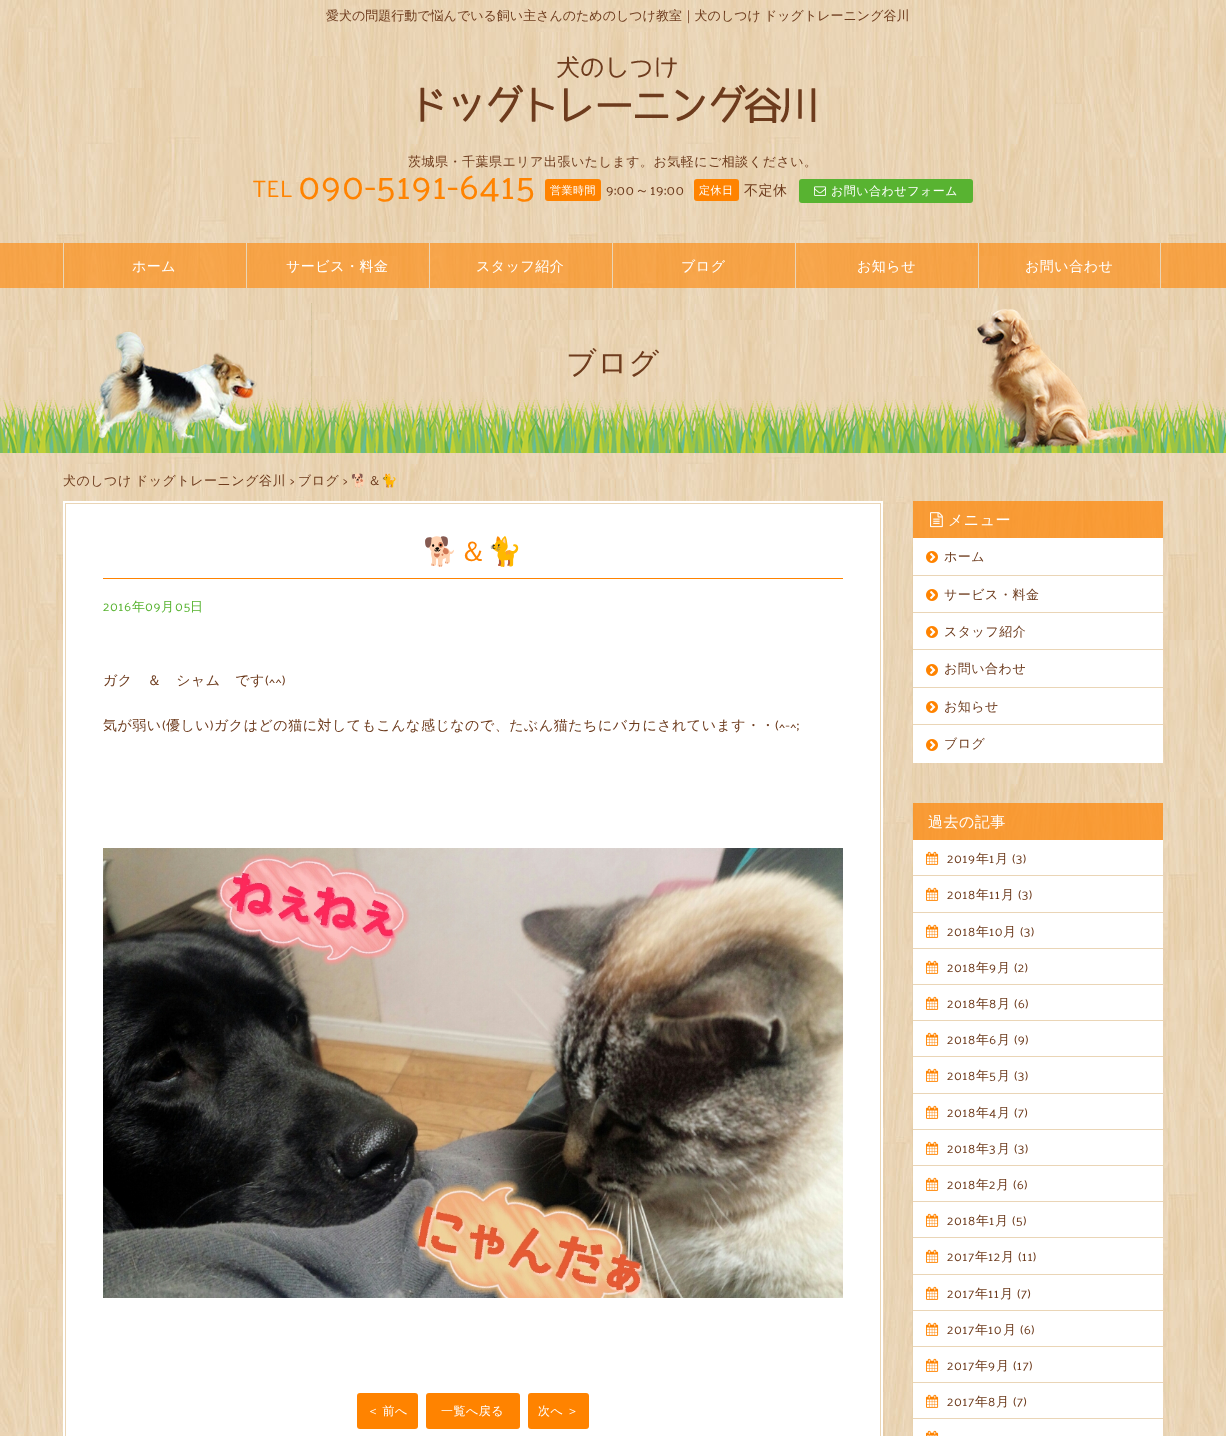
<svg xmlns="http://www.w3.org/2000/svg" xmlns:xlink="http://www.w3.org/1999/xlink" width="1226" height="1436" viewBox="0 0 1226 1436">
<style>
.cls-1{font:500 13px WenQuanYi Zen Hei;fill:#6d3b1d}
.cls-2{font:500 13px WenQuanYi Zen Hei;letter-spacing:0.5px;fill:#6d3b1d}
.cls-3{font:24px Palanquin;letter-spacing:0.5px;fill:#ff8300}
.cls-4{font:37px Palanquin;letter-spacing:0.5px;fill:#ff8300}
.cls-5{font:500 11px WenQuanYi Zen Hei;letter-spacing:0.5px;fill:#ffffff}
.cls-6{font:14px Palanquin;letter-spacing:0.5px;fill:#6d3b1d}
.cls-7{font:500 14px WenQuanYi Zen Hei;letter-spacing:0.5px;fill:#6d3b1d}
.cls-8{font:500 12px WenQuanYi Zen Hei;letter-spacing:0.5px;fill:#ffffff}
.cls-9{font:500 14px WenQuanYi Zen Hei;letter-spacing:0.5px;fill:#ffffff}
.cls-10{font:500 30px WenQuanYi Zen Hei;letter-spacing:0.5px;fill:#6d3b1d}
.cls-11{font:13px Palanquin;letter-spacing:0.5px;fill:#6d3b1d}
.cls-12{font:13px Noto Color Emoji;letter-spacing:0.5px;fill:#6d3b1d}
.cls-13{font:28px Noto Color Emoji;letter-spacing:0.5px;fill:#ff8300}
.cls-14{font:500 28px WenQuanYi Zen Hei;letter-spacing:0.5px;fill:#ff8300}
.cls-15{font:13px Palanquin;letter-spacing:0.5px;fill:#58b331}
.cls-16{font:500 13px WenQuanYi Zen Hei;letter-spacing:0.5px;fill:#58b331}
.cls-17{font:500 15px WenQuanYi Zen Hei;letter-spacing:0.5px;fill:#ffffff}
</style>
<rect width="100%" height="100%" fill="#ffffff"/>
<image xlink:href="image0.png" x="0" y="0" width="1226" height="1436"/>
<image xlink:href="image1.png" x="420" y="56" width="396" height="67"/>
<rect fill="#ff8300" x="545" y="179" width="56" height="22" rx="3"/>
<rect fill="#ff8300" x="694" y="179" width="45" height="22" rx="3"/>
<rect fill="#58b331" x="799" y="179" width="174" height="24" rx="3"/>
<image xlink:href="image2.png" x="814" y="186" width="12" height="10"/>
<rect fill="#ff8300" fill-opacity="0.6" x="0" y="243" width="1226" height="45"/>
<rect fill="#ead5b6" x="63" y="243" width="1" height="45"/>
<rect fill="#ead5b6" x="246" y="243" width="1" height="45"/>
<rect fill="#ead5b6" x="429" y="243" width="1" height="45"/>
<rect fill="#ead5b6" x="612" y="243" width="1" height="45"/>
<rect fill="#ead5b6" x="795" y="243" width="1" height="45"/>
<rect fill="#ead5b6" x="978" y="243" width="1" height="45"/>
<rect fill="#ead5b6" x="1160" y="243" width="1" height="45"/>
<image xlink:href="image3.png" x="0" y="303" width="1226" height="150"/>
<rect fill="#ffffff" x="63" y="501" width="820" height="935"/>
<rect fill="none" stroke="#ead5b6" x="65.5" y="503.5" width="815" height="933"/>
<rect fill="#ff8300" x="103" y="578" width="740" height="1"/>
<image xlink:href="image4.png" x="103" y="848" width="740" height="450"/>
<rect fill="#ff8300" x="357" y="1393" width="61" height="36" rx="3"/>
<rect fill="#ff8300" x="426" y="1393" width="94" height="36" rx="3"/>
<rect fill="#ff8300" x="528" y="1393" width="61" height="36" rx="3"/>
<rect fill="#ff8300" fill-opacity="0.7" x="913" y="501" width="250" height="37"/>
<image xlink:href="image5.png" x="930" y="512" width="13" height="16"/>
<rect fill="#ffffff" x="913" y="538" width="250" height="225"/>
<image xlink:href="image6.png" x="926" y="551" width="12" height="12"/>
<rect fill="#ead5b6" x="913" y="575" width="250" height="1"/>
<image xlink:href="image6.png" x="926" y="589" width="12" height="12"/>
<rect fill="#ead5b6" x="913" y="612" width="250" height="1"/>
<image xlink:href="image6.png" x="926" y="626" width="12" height="12"/>
<rect fill="#ead5b6" x="913" y="649" width="250" height="1"/>
<image xlink:href="image6.png" x="926" y="664" width="12" height="12"/>
<rect fill="#ead5b6" x="913" y="687" width="250" height="1"/>
<image xlink:href="image6.png" x="926" y="701" width="12" height="12"/>
<rect fill="#ead5b6" x="913" y="724" width="250" height="1"/>
<image xlink:href="image6.png" x="926" y="739" width="12" height="12"/>
<rect fill="#ff8300" fill-opacity="0.7" x="913" y="803" width="250" height="37"/>
<rect fill="#ffffff" x="913" y="840" width="250" height="596"/>
<image xlink:href="image7.png" x="926" y="851" width="13" height="14"/>
<rect fill="#ead5b6" x="913" y="875" width="250" height="1"/>
<image xlink:href="image7.png" x="926" y="887" width="13" height="14"/>
<rect fill="#ead5b6" x="913" y="912" width="250" height="1"/>
<image xlink:href="image7.png" x="926" y="924" width="13" height="14"/>
<rect fill="#ead5b6" x="913" y="948" width="250" height="1"/>
<image xlink:href="image7.png" x="926" y="960" width="13" height="14"/>
<rect fill="#ead5b6" x="913" y="984" width="250" height="1"/>
<image xlink:href="image7.png" x="926" y="996" width="13" height="14"/>
<rect fill="#ead5b6" x="913" y="1020" width="250" height="1"/>
<image xlink:href="image7.png" x="926" y="1032" width="13" height="14"/>
<rect fill="#ead5b6" x="913" y="1056" width="250" height="1"/>
<image xlink:href="image7.png" x="926" y="1068" width="13" height="14"/>
<rect fill="#ead5b6" x="913" y="1093" width="250" height="1"/>
<image xlink:href="image7.png" x="926" y="1105" width="13" height="14"/>
<rect fill="#ead5b6" x="913" y="1129" width="250" height="1"/>
<image xlink:href="image7.png" x="926" y="1141" width="13" height="14"/>
<rect fill="#ead5b6" x="913" y="1165" width="250" height="1"/>
<image xlink:href="image7.png" x="926" y="1177" width="13" height="14"/>
<rect fill="#ead5b6" x="913" y="1201" width="250" height="1"/>
<image xlink:href="image7.png" x="926" y="1213" width="13" height="14"/>
<rect fill="#ead5b6" x="913" y="1237" width="250" height="1"/>
<image xlink:href="image7.png" x="926" y="1249" width="13" height="14"/>
<rect fill="#ead5b6" x="913" y="1274" width="250" height="1"/>
<image xlink:href="image7.png" x="926" y="1286" width="13" height="14"/>
<rect fill="#ead5b6" x="913" y="1310" width="250" height="1"/>
<image xlink:href="image7.png" x="926" y="1322" width="13" height="14"/>
<rect fill="#ead5b6" x="913" y="1346" width="250" height="1"/>
<image xlink:href="image7.png" x="926" y="1358" width="13" height="14"/>
<rect fill="#ead5b6" x="913" y="1382" width="250" height="1"/>
<image xlink:href="image7.png" x="926" y="1394" width="13" height="14"/>
<rect fill="#ead5b6" x="913" y="1418" width="250" height="1"/>
<image xlink:href="image8.png" x="926" y="1430" width="13" height="6"/>
<text class="cls-1" x="326" y="20">愛犬の問題行動で悩んでいる飼い主さんのためのしつけ教室｜犬のしつけ</text>
<text class="cls-1" x="764" y="20">ドッグトレーニング谷川</text>
<text class="cls-2" x="408" y="166">茨城県・千葉県エリア出張いたします。お気軽にご相談ください。</text>
<text class="cls-3" x="253" y="197">TEL</text>
<text class="cls-4" x="298" y="199">090-5191-6415</text>
<text class="cls-5" x="550" y="194">営業時間</text>
<text class="cls-6" x="606" y="195">9:00</text>
<text class="cls-7" x="635" y="195">～</text>
<text class="cls-6" x="650" y="195">19:00</text>
<text class="cls-5" x="699" y="194">定休日</text>
<text class="cls-7" x="744" y="195">不定休</text>
<text class="cls-8" x="831" y="195">お問い合わせフォーム</text>
<text class="cls-9" x="132" y="271">ホーム</text>
<text class="cls-9" x="286" y="271">サービス・料金</text>
<text class="cls-9" x="476" y="271">スタッフ紹介</text>
<text class="cls-9" x="681" y="271">ブログ</text>
<text class="cls-9" x="857" y="271">お知らせ</text>
<text class="cls-9" x="1025" y="271">お問い合わせ</text>
<text class="cls-10" x="566" y="373">ブログ</text>
<text class="cls-2" x="63" y="485">犬のしつけ</text>
<text class="cls-2" x="135" y="485">ドッグトレーニング谷川</text>
<text class="cls-11" x="290" y="485">&gt;</text>
<text class="cls-2" x="298" y="485">ブログ</text>
<text class="cls-11" x="343" y="485">&gt;</text>
<text class="cls-12" x="351" y="485">🐕</text>
<text class="cls-2" x="368" y="485">＆</text>
<text class="cls-12" x="381" y="485">🐈</text>
<text class="cls-13" x="423" y="561">🐕</text>
<text class="cls-14" x="459" y="561">＆</text>
<text class="cls-13" x="487" y="561">🐈</text>
<text class="cls-15" x="103" y="611">2016</text>
<text class="cls-16" x="132" y="611">年</text>
<text class="cls-15" x="145" y="611">09</text>
<text class="cls-16" x="161" y="611">月</text>
<text class="cls-15" x="175" y="611">05</text>
<text class="cls-16" x="190" y="611">日</text>
<text class="cls-7" x="103" y="685">ガク　＆　シャム　です</text>
<text class="cls-6" x="265" y="685">(^^)</text>
<text class="cls-7" x="103" y="730">気が弱い</text>
<text class="cls-6" x="162" y="730">(</text>
<text class="cls-7" x="166" y="730">優しい</text>
<text class="cls-6" x="210" y="730">)</text>
<text class="cls-7" x="214" y="730">ガクはどの猫に対してもこんな感じなので、たぶん猫たちにバカにされています・・</text>
<text class="cls-6" x="775" y="730">(^-^;</text>
<text class="cls-8" x="367" y="1415" word-spacing="-1">＜ 前へ</text>
<text class="cls-8" x="441" y="1415">一覧へ戻る</text>
<text class="cls-8" x="538" y="1415" word-spacing="-1">次へ ＞</text>
<text class="cls-17" x="948" y="525">メニュー</text>
<text class="cls-2" x="944" y="561">ホーム</text>
<text class="cls-2" x="944" y="599">サービス・料金</text>
<text class="cls-2" x="944" y="636">スタッフ紹介</text>
<text class="cls-2" x="944" y="673">お問い合わせ</text>
<text class="cls-2" x="944" y="711">お知らせ</text>
<text class="cls-2" x="944" y="748">ブログ</text>
<text class="cls-17" x="928" y="827">過去の記事</text>
<text class="cls-11" x="947" y="863">2019</text>
<text class="cls-2" x="976" y="863">年</text>
<text class="cls-11" x="989" y="863">1</text>
<text class="cls-2" x="995" y="863">月</text>
<text class="cls-11" x="1012" y="863">(3)</text>
<text class="cls-11" x="947" y="899">2018</text>
<text class="cls-2" x="976" y="899">年</text>
<text class="cls-11" x="989" y="899">11</text>
<text class="cls-2" x="1001" y="899">月</text>
<text class="cls-11" x="1018" y="899">(3)</text>
<text class="cls-11" x="947" y="936">2018</text>
<text class="cls-2" x="976" y="936">年</text>
<text class="cls-11" x="989" y="936">10</text>
<text class="cls-2" x="1003" y="936">月</text>
<text class="cls-11" x="1020" y="936">(3)</text>
<text class="cls-11" x="947" y="972">2018</text>
<text class="cls-2" x="976" y="972">年</text>
<text class="cls-11" x="989" y="972">9</text>
<text class="cls-2" x="997" y="972">月</text>
<text class="cls-11" x="1014" y="972">(2)</text>
<text class="cls-11" x="947" y="1008">2018</text>
<text class="cls-2" x="976" y="1008">年</text>
<text class="cls-11" x="989" y="1008">8</text>
<text class="cls-2" x="997" y="1008">月</text>
<text class="cls-11" x="1014" y="1008">(6)</text>
<text class="cls-11" x="947" y="1044">2018</text>
<text class="cls-2" x="976" y="1044">年</text>
<text class="cls-11" x="989" y="1044">6</text>
<text class="cls-2" x="997" y="1044">月</text>
<text class="cls-11" x="1014" y="1044">(9)</text>
<text class="cls-11" x="947" y="1080">2018</text>
<text class="cls-2" x="976" y="1080">年</text>
<text class="cls-11" x="989" y="1080">5</text>
<text class="cls-2" x="997" y="1080">月</text>
<text class="cls-11" x="1014" y="1080">(3)</text>
<text class="cls-11" x="947" y="1117">2018</text>
<text class="cls-2" x="976" y="1117">年</text>
<text class="cls-11" x="989" y="1117">4</text>
<text class="cls-2" x="997" y="1117">月</text>
<text class="cls-11" x="1014" y="1117">(7)</text>
<text class="cls-11" x="947" y="1153">2018</text>
<text class="cls-2" x="976" y="1153">年</text>
<text class="cls-11" x="989" y="1153">3</text>
<text class="cls-2" x="997" y="1153">月</text>
<text class="cls-11" x="1014" y="1153">(3)</text>
<text class="cls-11" x="947" y="1189">2018</text>
<text class="cls-2" x="976" y="1189">年</text>
<text class="cls-11" x="989" y="1189">2</text>
<text class="cls-2" x="996" y="1189">月</text>
<text class="cls-11" x="1013" y="1189">(6)</text>
<text class="cls-11" x="947" y="1225">2018</text>
<text class="cls-2" x="976" y="1225">年</text>
<text class="cls-11" x="989" y="1225">1</text>
<text class="cls-2" x="995" y="1225">月</text>
<text class="cls-11" x="1012" y="1225">(5)</text>
<text class="cls-11" x="947" y="1261">2017</text>
<text class="cls-2" x="975" y="1261">年</text>
<text class="cls-11" x="988" y="1261">12</text>
<text class="cls-2" x="1001" y="1261">月</text>
<text class="cls-11" x="1018" y="1261">(11)</text>
<text class="cls-11" x="947" y="1298">2017</text>
<text class="cls-2" x="975" y="1298">年</text>
<text class="cls-11" x="988" y="1298">11</text>
<text class="cls-2" x="1000" y="1298">月</text>
<text class="cls-11" x="1017" y="1298">(7)</text>
<text class="cls-11" x="947" y="1334">2017</text>
<text class="cls-2" x="975" y="1334">年</text>
<text class="cls-11" x="988" y="1334">10</text>
<text class="cls-2" x="1003" y="1334">月</text>
<text class="cls-11" x="1020" y="1334">(6)</text>
<text class="cls-11" x="947" y="1370">2017</text>
<text class="cls-2" x="975" y="1370">年</text>
<text class="cls-11" x="988" y="1370">9</text>
<text class="cls-2" x="996" y="1370">月</text>
<text class="cls-11" x="1013" y="1370">(17)</text>
<text class="cls-11" x="947" y="1406">2017</text>
<text class="cls-2" x="975" y="1406">年</text>
<text class="cls-11" x="988" y="1406">8</text>
<text class="cls-2" x="996" y="1406">月</text>
<text class="cls-11" x="1013" y="1406">(7)</text>
</svg>
